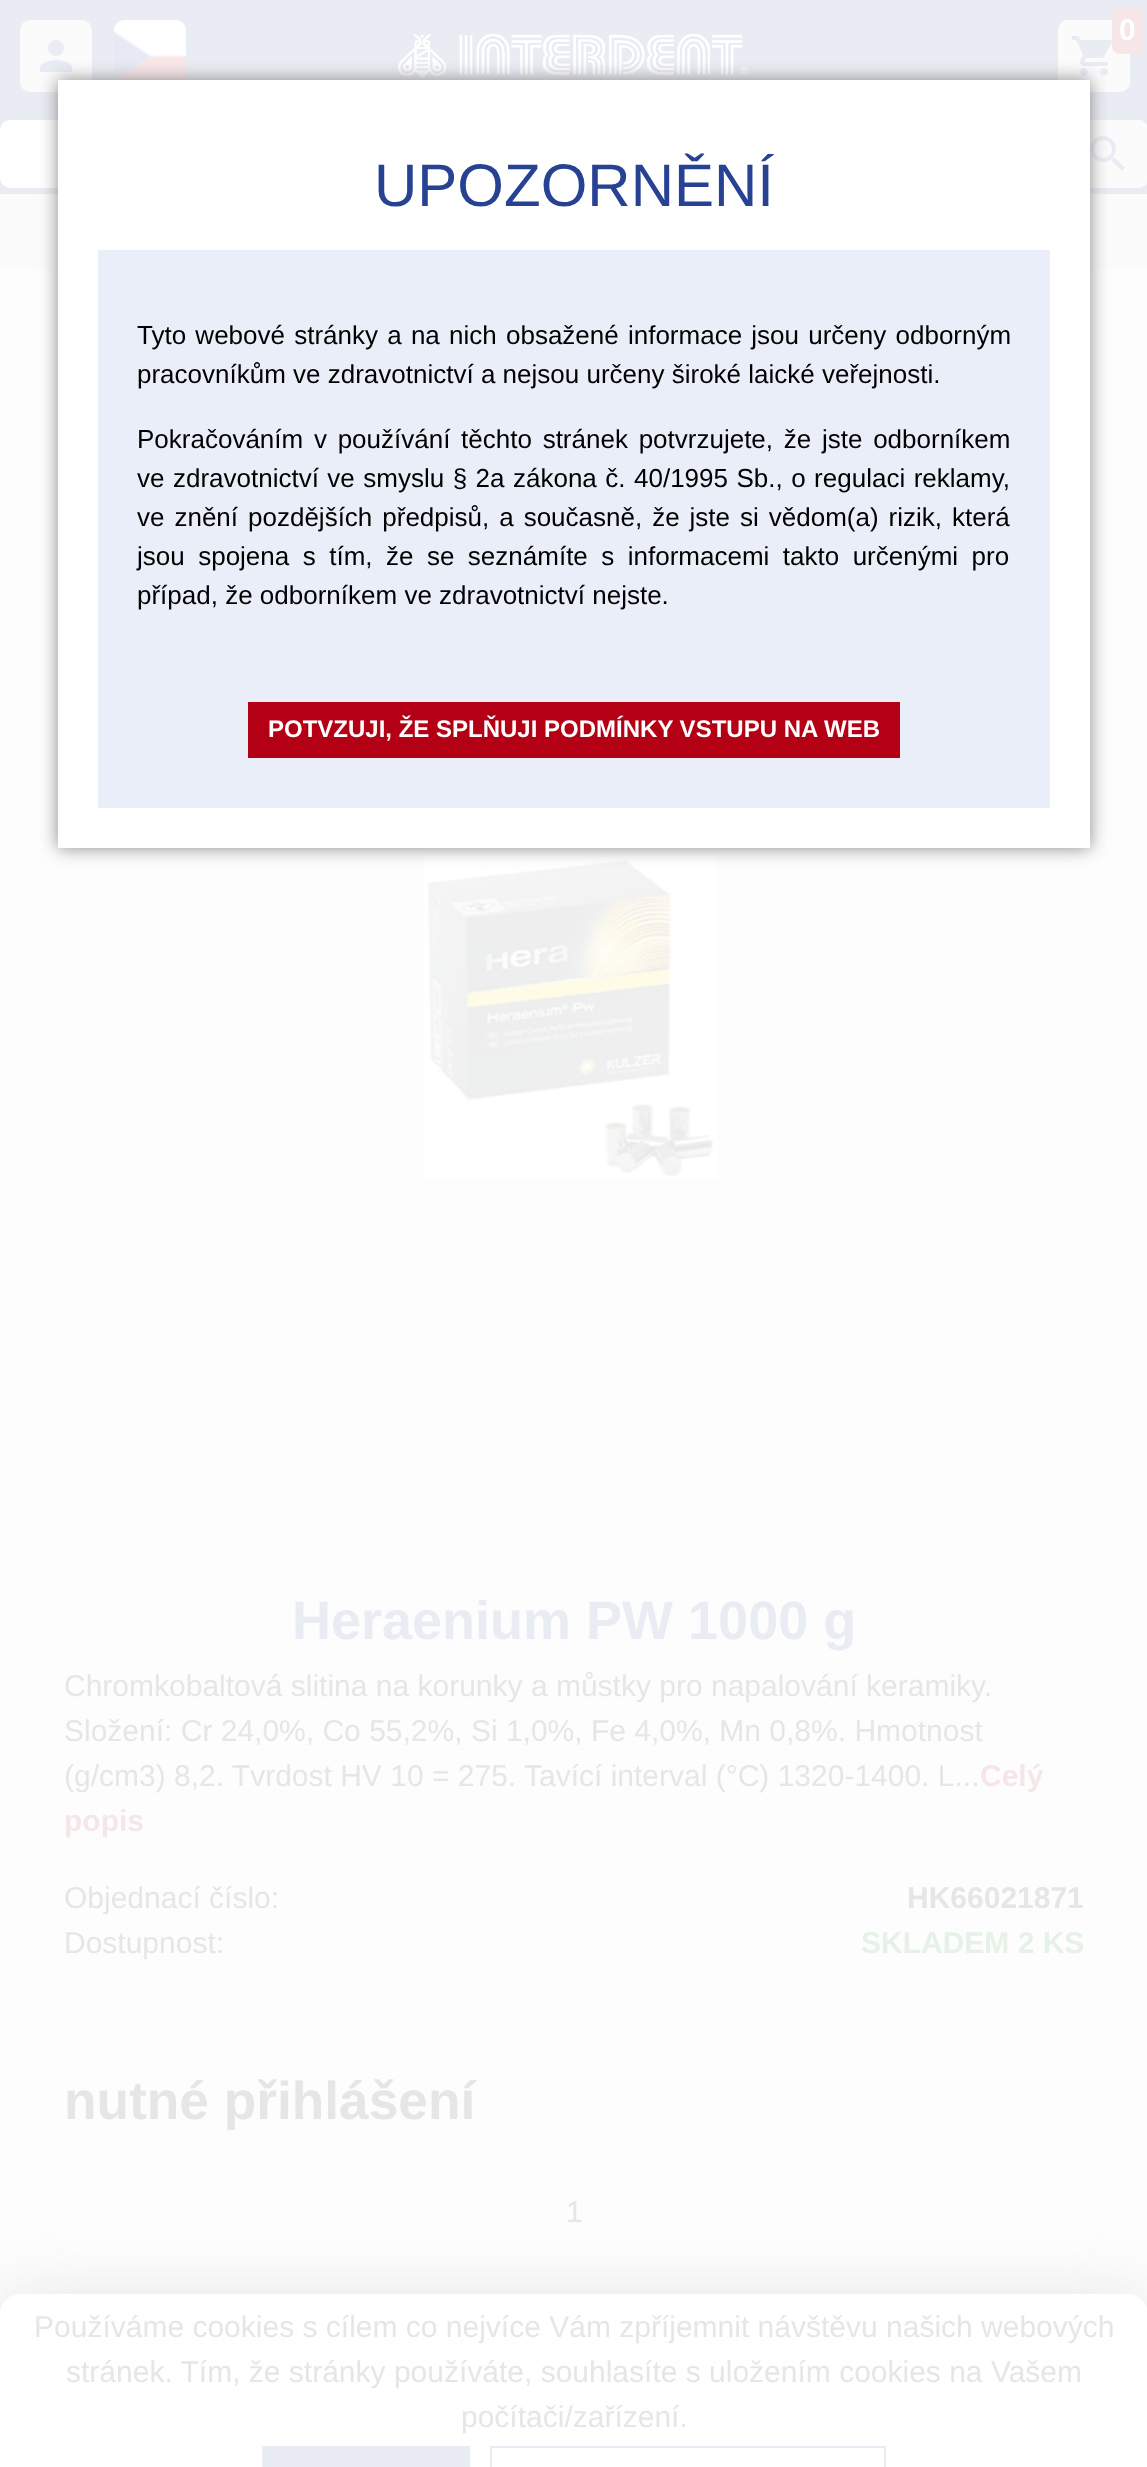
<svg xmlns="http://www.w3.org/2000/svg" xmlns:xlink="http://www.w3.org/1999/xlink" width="1147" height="2467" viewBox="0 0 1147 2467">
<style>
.cls-1{font:bold 30px Liberation Sans;fill:#ffffff}
.cls-2{font:bold 54px Liberation Sans;fill:#eaecf4}
.cls-3{font:30px Liberation Sans;fill:#e6e6e6}
.cls-4{font:bold 30px Liberation Sans;fill:#f7e6e8}
.cls-5{font:bold 30px Liberation Sans;fill:#e6e6e6}
.cls-6{font:bold 30px Liberation Sans;fill:#e6f2e6}
.cls-7{font:bold 53.25px Liberation Sans;fill:#e6e6e6}
.cls-8{font:60px Liberation Sans;fill:#284293}
.cls-9{font:26px Liberation Sans;fill:#000000}
.cls-10{font:bold 24px Liberation Sans;fill:#ffffff}
</style>
<rect width="100%" height="100%" fill="#fdfdfe"/>
<rect fill="#eaecf4" x="0" y="0" width="1147" height="194"/>
<rect fill="#fbfbfb" x="20" y="20" width="72" height="72" rx="10"/>
<image xlink:href="image0.png" x="39" y="40" width="34" height="32"/>
<image xlink:href="image1.png" x="114" y="20" width="72" height="60"/>
<rect fill="#fbfbfb" x="1058" y="20" width="72" height="72" rx="10"/>
<rect fill="#f7e6e8" x="1112" y="8" width="32" height="46" rx="8"/>
<image xlink:href="image2.png" x="1071" y="36" width="41" height="40"/>
<image xlink:href="image3.png" x="398" y="33" width="351" height="46"/>
<rect fill="#ffffff" x="0" y="120" width="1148" height="68" rx="10"/>
<rect fill="#fbfbfb" x="1068" y="120" width="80" height="68" rx="10"/>
<image xlink:href="image4.png" x="1090" y="136" width="35" height="35"/>
<rect fill="#fbfbfb" x="0" y="194" width="1147" height="76"/>
<image xlink:href="image5.png" x="424" y="854" width="293" height="325"/>
<rect fill="#898989" filter="blur(9px)" x="58" y="80" width="1032" height="768"/>
<rect fill="#ffffff" x="58" y="80" width="1032" height="768"/>
<rect fill="#e9eef8" x="98" y="250" width="952" height="558"/>
<rect fill="#b30014" x="248" y="702" width="652" height="56"/>
<rect fill="#e6e6e6" filter="blur(30px)" x="0" y="2294" width="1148" height="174" rx="20"/>
<path fill="#ffffff" d="M20 2294H1128C1139 2294 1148 2303 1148 2314V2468H0V2314C0 2303 9 2294 20 2294Z"/>
<rect fill="#eaecf4" x="262" y="2446" width="208" height="21"/>
<path fill="#eaecf4" d="M490 2446V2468H492V2448H884V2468H886V2446Z"/>
<text class="cls-1" x="1119" y="40">0</text>
<text class="cls-2" x="292" y="1639">Heraenium PW 1000 g</text>
<text class="cls-3"><tspan x="64" y="1696">Chromkobaltová slitina na korunky a můstky pro napalování keramiky.</tspan><tspan x="64" y="1741">Složení: Cr 24,0%, Co 55,2%, Si 1,0%, Fe 4,0%, Mn 0,8%. Hmotnost</tspan><tspan x="64" y="1786">(g/cm3) 8,2. Tvrdost HV 10 = 275. Tavící interval (°C) 1320-1400. L...</tspan></text>
<text class="cls-4" x="980" y="1786">Celý</text>
<text class="cls-4" x="64" y="1831">popis</text>
<text class="cls-3" x="64" y="1908">Objednací číslo:</text>
<text class="cls-5" x="907" y="1908">HK66021871</text>
<text class="cls-3" x="64" y="1953">Dostupnost:</text>
<text class="cls-6" x="861" y="1953">SKLADEM 2 KS</text>
<text class="cls-7" x="64" y="2119">nutné přihlášení</text>
<text class="cls-3" x="566" y="2222">1</text>
<text class="cls-8" x="374" y="206">UPOZORNĚNÍ</text>
<text class="cls-9"><tspan x="137" y="344" word-spacing="2">Tyto webové stránky a na nich obsažené informace jsou určeny odborným</tspan><tspan x="137" y="383">pracovníkům ve zdravotnictví a nejsou určeny široké laické veřejnosti.</tspan></text>
<text class="cls-9"><tspan x="137" y="448" word-spacing="3.5">Pokračováním v používání těchto stránek potvrzujete, že jste odborníkem</tspan><tspan x="137" y="487" word-spacing="1.25">ve zdravotnictví ve smyslu § 2a zákona č. 40/1995 Sb., o regulaci reklamy,</tspan><tspan x="137" y="526" word-spacing="2.75">ve znění pozdějších předpisů, a současně, že jste si vědom(a) rizik, která</tspan><tspan x="137" y="565" word-spacing="6.25">jsou spojena s tím, že se seznámíte s informacemi takto určenými pro</tspan><tspan x="137" y="604">případ, že odborníkem ve zdravotnictví nejste.</tspan></text>
<text class="cls-10" x="268" y="737">POTVZUJI, ŽE SPLŇUJI PODMÍNKY VSTUPU NA WEB</text>
<text class="cls-3" x="34" y="2337">Používáme cookies s cílem co nejvíce Vám zpříjemnit návštěvu našich webových</text>
<text class="cls-3" x="66" y="2382">stránek. Tím, že stránky používáte, souhlasíte s uložením cookies na Vašem</text>
<text class="cls-3" x="461" y="2427">počítači/zařízení.</text>
</svg>
